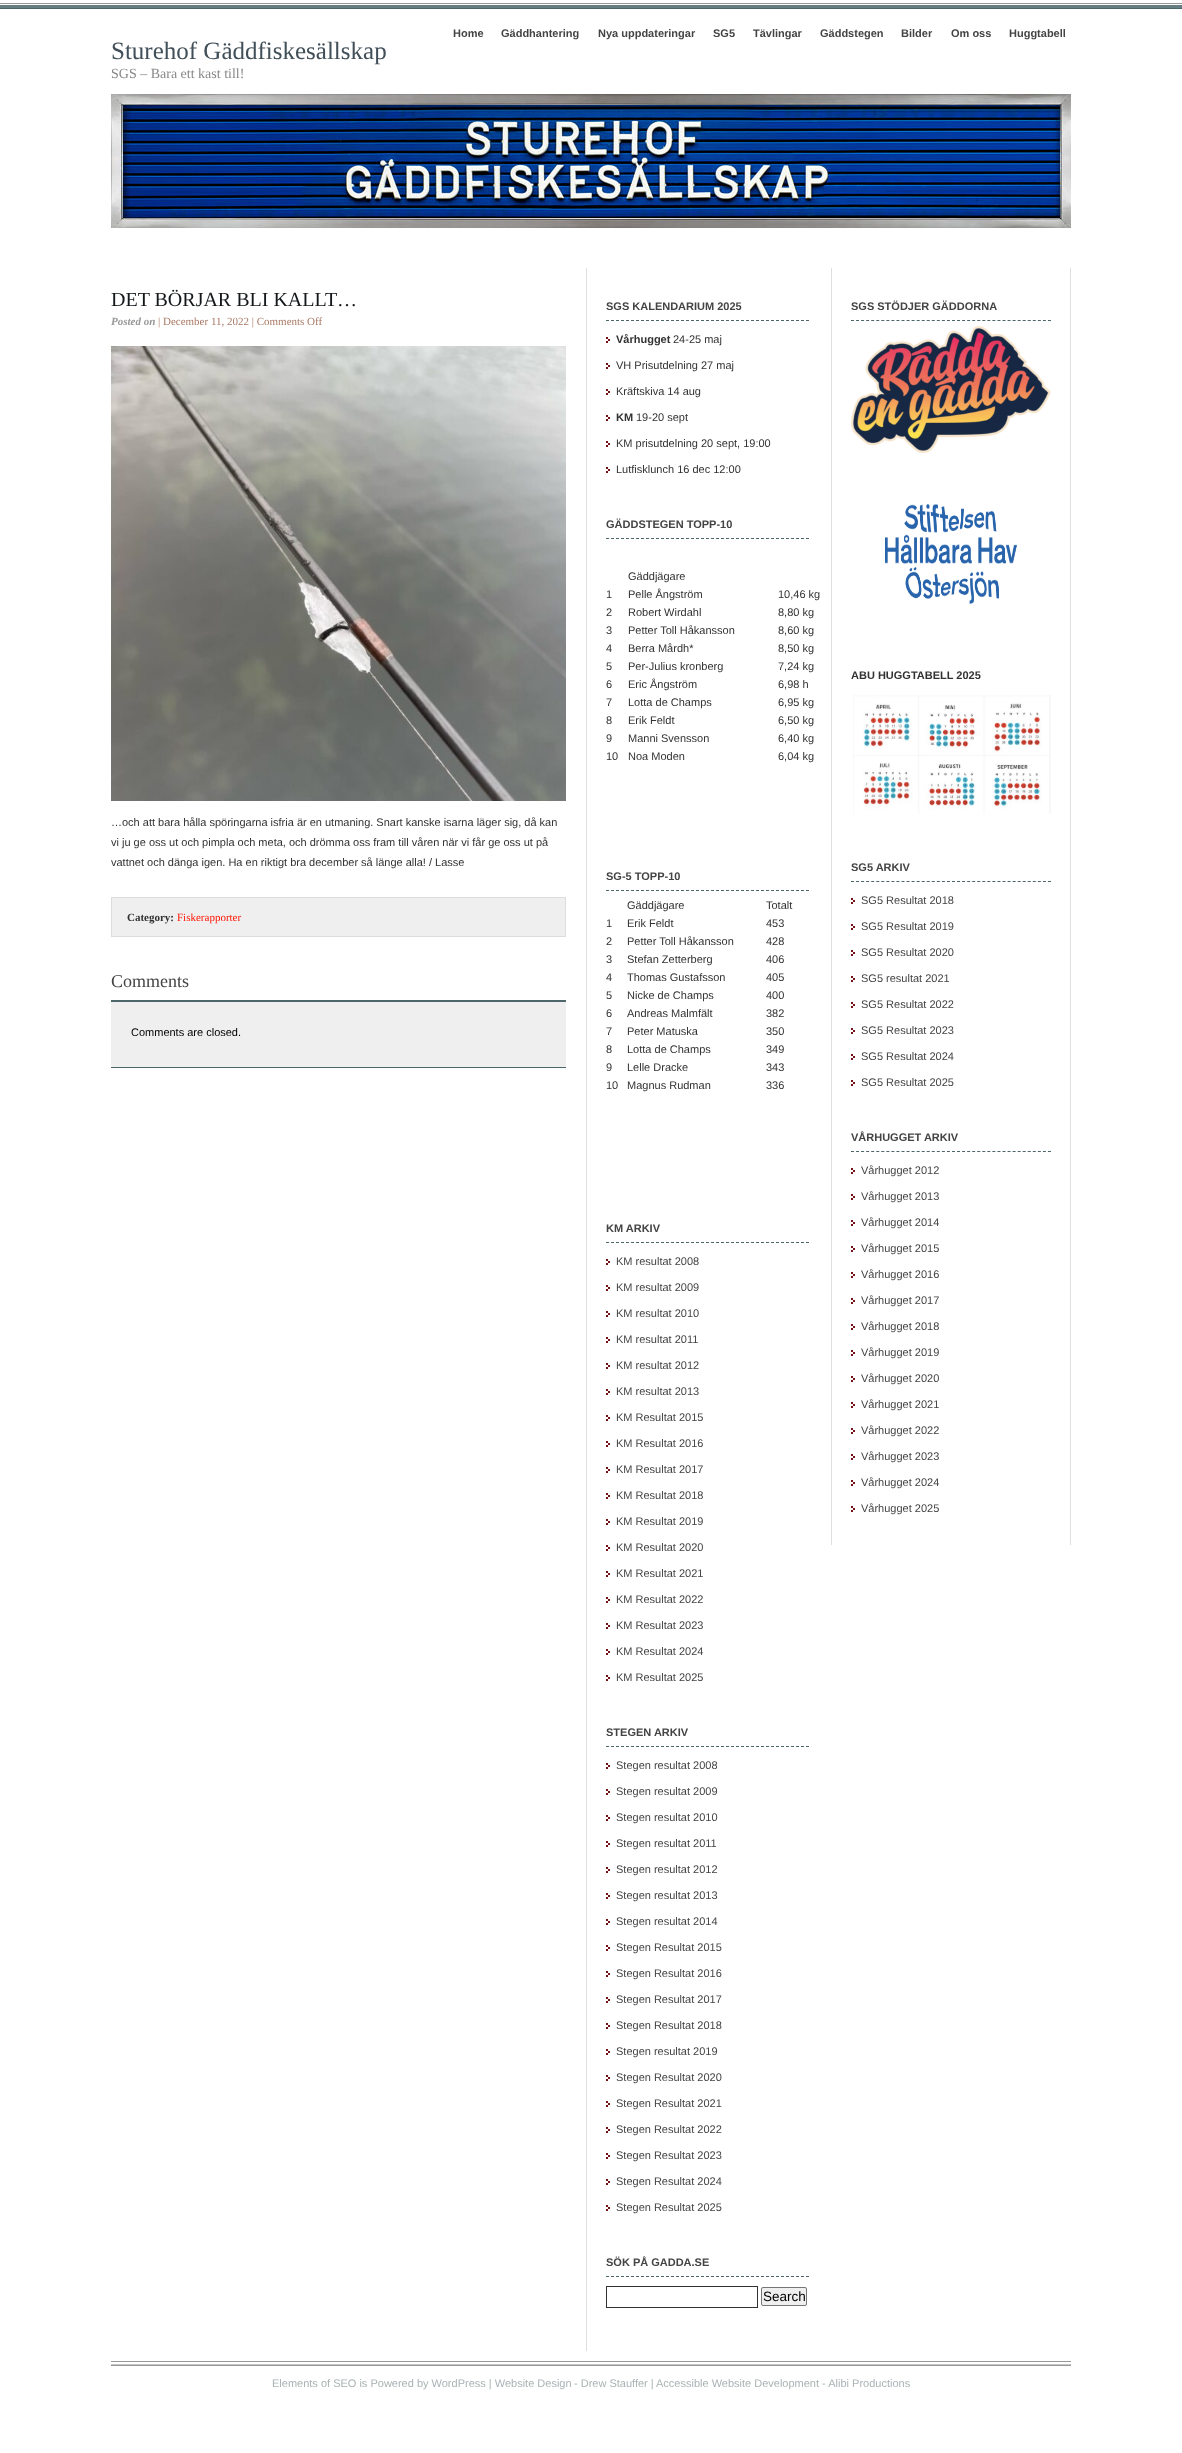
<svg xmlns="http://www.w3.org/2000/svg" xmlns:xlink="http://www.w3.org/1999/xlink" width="1182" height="2453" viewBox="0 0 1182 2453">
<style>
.cls-1{font:bold 11px Liberation Sans;fill:#444444}
.cls-2{font:25px Liberation Serif;fill:#414f59}
.cls-3{font:14px Liberation Serif;fill:#888888}
.cls-4{font:20px Liberation Serif;fill:#14181a}
.cls-5{font:italic bold 11px Liberation Serif;fill:#989898}
.cls-6{font:11px Liberation Serif;fill:#a97965}
.cls-7{font:11px Liberation Sans;fill:#323232}
.cls-8{font:bold 11px Liberation Serif;fill:#323232}
.cls-9{font:11px Liberation Serif;fill:#ff1605}
.cls-10{font:18px Liberation Serif;fill:#444444}
.cls-11{font:11px Liberation Sans;fill:#000000}
.cls-12{font:bold 11px Liberation Sans;fill:#323232}
.cls-13{font:11px Liberation Sans;fill:#444444}
.cls-14{font:13.5px Liberation Sans;fill:#000000}
.cls-15{font:11px Liberation Sans;fill:#aab3b4}
</style>
<rect width="100%" height="100%" fill="#ffffff"/>
<image xlink:href="image0.png" x="0" y="3" width="1182" height="6"/>
<rect fill="#ffffff" x="111" y="3" width="960" height="6"/>
<image xlink:href="image1.png" x="111" y="3" width="960" height="6"/>
<image xlink:href="image2.png" x="111" y="94" width="960" height="134"/>
<image xlink:href="image3.png" x="111" y="346" width="455" height="455"/>
<rect fill="#efefef" stroke="#dddcdc" x="111.5" y="897.5" width="454" height="39"/>
<rect fill="#efefef" x="111" y="1002" width="455" height="65"/>
<rect fill="#4c666a" x="111" y="1000" width="455" height="2"/>
<rect fill="#4c666a" x="111" y="1067" width="455" height="1"/>
<rect fill="#e2ddde" x="586" y="268" width="1" height="2083"/>
<path fill="none" stroke="#4c666a" stroke-dasharray="3 2" d="M606 320.5H809"/>
<image xlink:href="image4.png" x="606" y="337" width="4" height="6"/>
<image xlink:href="image4.png" x="606" y="363" width="4" height="6"/>
<image xlink:href="image4.png" x="606" y="389" width="4" height="6"/>
<image xlink:href="image4.png" x="606" y="415" width="4" height="6"/>
<image xlink:href="image4.png" x="606" y="441" width="4" height="6"/>
<image xlink:href="image4.png" x="606" y="467" width="4" height="6"/>
<path fill="none" stroke="#4c666a" stroke-dasharray="3 2" d="M606 538.5H809"/>
<path fill="none" stroke="#4c666a" stroke-dasharray="3 2" d="M606 890.5H809"/>
<path fill="none" stroke="#4c666a" stroke-dasharray="3 2" d="M606 1242.5H809"/>
<image xlink:href="image4.png" x="606" y="1259" width="4" height="6"/>
<image xlink:href="image4.png" x="606" y="1285" width="4" height="6"/>
<image xlink:href="image4.png" x="606" y="1311" width="4" height="6"/>
<image xlink:href="image4.png" x="606" y="1337" width="4" height="6"/>
<image xlink:href="image4.png" x="606" y="1363" width="4" height="6"/>
<image xlink:href="image4.png" x="606" y="1389" width="4" height="6"/>
<image xlink:href="image4.png" x="606" y="1415" width="4" height="6"/>
<image xlink:href="image4.png" x="606" y="1441" width="4" height="6"/>
<image xlink:href="image4.png" x="606" y="1467" width="4" height="6"/>
<image xlink:href="image4.png" x="606" y="1493" width="4" height="6"/>
<image xlink:href="image4.png" x="606" y="1519" width="4" height="6"/>
<image xlink:href="image4.png" x="606" y="1545" width="4" height="6"/>
<image xlink:href="image4.png" x="606" y="1571" width="4" height="6"/>
<image xlink:href="image4.png" x="606" y="1597" width="4" height="6"/>
<image xlink:href="image4.png" x="606" y="1623" width="4" height="6"/>
<image xlink:href="image4.png" x="606" y="1649" width="4" height="6"/>
<image xlink:href="image4.png" x="606" y="1675" width="4" height="6"/>
<path fill="none" stroke="#4c666a" stroke-dasharray="3 2" d="M606 1746.5H809"/>
<image xlink:href="image4.png" x="606" y="1763" width="4" height="6"/>
<image xlink:href="image4.png" x="606" y="1789" width="4" height="6"/>
<image xlink:href="image4.png" x="606" y="1815" width="4" height="6"/>
<image xlink:href="image4.png" x="606" y="1841" width="4" height="6"/>
<image xlink:href="image4.png" x="606" y="1867" width="4" height="6"/>
<image xlink:href="image4.png" x="606" y="1893" width="4" height="6"/>
<image xlink:href="image4.png" x="606" y="1919" width="4" height="6"/>
<image xlink:href="image4.png" x="606" y="1945" width="4" height="6"/>
<image xlink:href="image4.png" x="606" y="1971" width="4" height="6"/>
<image xlink:href="image4.png" x="606" y="1997" width="4" height="6"/>
<image xlink:href="image4.png" x="606" y="2023" width="4" height="6"/>
<image xlink:href="image4.png" x="606" y="2049" width="4" height="6"/>
<image xlink:href="image4.png" x="606" y="2075" width="4" height="6"/>
<image xlink:href="image4.png" x="606" y="2101" width="4" height="6"/>
<image xlink:href="image4.png" x="606" y="2127" width="4" height="6"/>
<image xlink:href="image4.png" x="606" y="2153" width="4" height="6"/>
<image xlink:href="image4.png" x="606" y="2179" width="4" height="6"/>
<image xlink:href="image4.png" x="606" y="2205" width="4" height="6"/>
<path fill="none" stroke="#4c666a" stroke-dasharray="3 2" d="M606 2276.5H809"/>
<rect fill="none" stroke="#323232" x="606.5" y="2286.5" width="151" height="21"/>
<rect fill="#efefef" stroke="#767676" x="761.5" y="2287.5" width="45" height="18" rx="1.5"/>
<rect fill="#e2ddde" x="1070" y="268" width="1" height="1277"/>
<rect fill="#e2ddde" x="831" y="268" width="1" height="1277"/>
<path fill="none" stroke="#4c666a" stroke-dasharray="3 2.05" d="M851 320.5H1051"/>
<image xlink:href="image5.png" x="851" y="326" width="200" height="127"/>
<image xlink:href="image6.png" x="885" y="504" width="132" height="100"/>
<image xlink:href="image7.png" x="853" y="695" width="198" height="119"/>
<path fill="none" stroke="#4c666a" stroke-dasharray="3 2.05" d="M851 881.5H1051"/>
<image xlink:href="image4.png" x="851" y="898" width="4" height="6"/>
<image xlink:href="image4.png" x="851" y="924" width="4" height="6"/>
<image xlink:href="image4.png" x="851" y="950" width="4" height="6"/>
<image xlink:href="image4.png" x="851" y="976" width="4" height="6"/>
<image xlink:href="image4.png" x="851" y="1002" width="4" height="6"/>
<image xlink:href="image4.png" x="851" y="1028" width="4" height="6"/>
<image xlink:href="image4.png" x="851" y="1054" width="4" height="6"/>
<image xlink:href="image4.png" x="851" y="1080" width="4" height="6"/>
<path fill="none" stroke="#4c666a" stroke-dasharray="3 2.05" d="M851 1151.5H1051"/>
<image xlink:href="image4.png" x="851" y="1168" width="4" height="6"/>
<image xlink:href="image4.png" x="851" y="1194" width="4" height="6"/>
<image xlink:href="image4.png" x="851" y="1220" width="4" height="6"/>
<image xlink:href="image4.png" x="851" y="1246" width="4" height="6"/>
<image xlink:href="image4.png" x="851" y="1272" width="4" height="6"/>
<image xlink:href="image4.png" x="851" y="1298" width="4" height="6"/>
<image xlink:href="image4.png" x="851" y="1324" width="4" height="6"/>
<image xlink:href="image4.png" x="851" y="1350" width="4" height="6"/>
<image xlink:href="image4.png" x="851" y="1376" width="4" height="6"/>
<image xlink:href="image4.png" x="851" y="1402" width="4" height="6"/>
<image xlink:href="image4.png" x="851" y="1428" width="4" height="6"/>
<image xlink:href="image4.png" x="851" y="1454" width="4" height="6"/>
<image xlink:href="image4.png" x="851" y="1480" width="4" height="6"/>
<image xlink:href="image4.png" x="851" y="1506" width="4" height="6"/>
<image xlink:href="image8.png" x="111" y="2361" width="960" height="5"/>
<text class="cls-1" x="453" y="37">Home</text>
<text class="cls-1" x="501" y="37">Gäddhantering</text>
<text class="cls-1" x="598" y="37">Nya uppdateringar</text>
<text class="cls-1" x="713" y="37">SG5</text>
<text class="cls-1" x="753" y="37">Tävlingar</text>
<text class="cls-1" x="820" y="37">Gäddstegen</text>
<text class="cls-1" x="901" y="37">Bilder</text>
<text class="cls-1" x="951" y="37">Om oss</text>
<text class="cls-1" x="1009" y="37">Huggtabell</text>
<text class="cls-2" x="111" y="59">Sturehof Gäddfiskesällskap</text>
<text class="cls-3" x="111" y="78">SGS – Bara ett kast till!</text>
<text class="cls-4" x="111" y="306">DET BÖRJAR BLI KALLT…</text>
<text class="cls-5" x="111" y="325">Posted on</text>
<text class="cls-6" x="158" y="325">| December 11, 2022 | Comments Off</text>
<text class="cls-7"><tspan x="111" y="826">…och att bara hålla spöringarna isfria är en utmaning. Snart kanske isarna läger sig, då kan</tspan><tspan x="111" y="846">vi ju ge oss ut och pimpla och meta, och drömma oss fram till våren när vi får ge oss ut på</tspan><tspan x="111" y="866">vattnet och dänga igen. Ha en riktigt bra december så länge alla! / Lasse</tspan></text>
<text class="cls-8" x="127" y="921">Category:</text>
<text class="cls-9" x="177" y="921">Fiskerapporter</text>
<text class="cls-10" x="111" y="987">Comments</text>
<text class="cls-11" x="131" y="1036">Comments are closed.</text>
<text class="cls-1" x="606" y="310">SGS KALENDARIUM 2025</text>
<text class="cls-12" x="616" y="343">Vårhugget</text>
<text class="cls-7" x="673" y="343">24-25 maj</text>
<text class="cls-7" x="616" y="369">VH Prisutdelning 27 maj</text>
<text class="cls-7" x="616" y="395">Kräftskiva 14 aug</text>
<text class="cls-12" x="616" y="421">KM</text>
<text class="cls-7" x="636" y="421">19-20 sept</text>
<text class="cls-7" x="616" y="447">KM prisutdelning 20 sept, 19:00</text>
<text class="cls-7" x="616" y="473">Lutfisklunch 16 dec 12:00</text>
<text class="cls-1" x="606" y="528">GÄDDSTEGEN TOPP-10</text>
<text class="cls-7" x="628" y="580">Gäddjägare</text>
<text class="cls-7" x="606" y="598">1</text>
<text class="cls-7" x="628" y="598">Pelle Ångström</text>
<text class="cls-7" x="778" y="598">10,46 kg</text>
<text class="cls-7" x="606" y="616">2</text>
<text class="cls-7" x="628" y="616">Robert Wirdahl</text>
<text class="cls-7" x="778" y="616">8,80 kg</text>
<text class="cls-7" x="606" y="634">3</text>
<text class="cls-7" x="628" y="634">Petter Toll Håkansson</text>
<text class="cls-7" x="778" y="634">8,60 kg</text>
<text class="cls-7" x="606" y="652">4</text>
<text class="cls-7" x="628" y="652">Berra Mårdh*</text>
<text class="cls-7" x="778" y="652">8,50 kg</text>
<text class="cls-7" x="606" y="670">5</text>
<text class="cls-7" x="628" y="670">Per-Julius kronberg</text>
<text class="cls-7" x="778" y="670">7,24 kg</text>
<text class="cls-7" x="606" y="688">6</text>
<text class="cls-7" x="628" y="688">Eric Ångström</text>
<text class="cls-7" x="778" y="688">6,98 h</text>
<text class="cls-7" x="606" y="706">7</text>
<text class="cls-7" x="628" y="706">Lotta de Champs</text>
<text class="cls-7" x="778" y="706">6,95 kg</text>
<text class="cls-7" x="606" y="724">8</text>
<text class="cls-7" x="628" y="724">Erik Feldt</text>
<text class="cls-7" x="778" y="724">6,50 kg</text>
<text class="cls-7" x="606" y="742">9</text>
<text class="cls-7" x="628" y="742">Manni Svensson</text>
<text class="cls-7" x="778" y="742">6,40 kg</text>
<text class="cls-7" x="606" y="760">10</text>
<text class="cls-7" x="628" y="760">Noa Moden</text>
<text class="cls-7" x="778" y="760">6,04 kg</text>
<text class="cls-1" x="606" y="880">SG-5 TOPP-10</text>
<text class="cls-7" x="627" y="909">Gäddjägare</text>
<text class="cls-7" x="766" y="909">Totalt</text>
<text class="cls-7" x="606" y="927">1</text>
<text class="cls-7" x="627" y="927">Erik Feldt</text>
<text class="cls-7" x="766" y="927">453</text>
<text class="cls-7" x="606" y="945">2</text>
<text class="cls-7" x="627" y="945">Petter Toll Håkansson</text>
<text class="cls-7" x="766" y="945">428</text>
<text class="cls-7" x="606" y="963">3</text>
<text class="cls-7" x="627" y="963">Stefan Zetterberg</text>
<text class="cls-7" x="766" y="963">406</text>
<text class="cls-7" x="606" y="981">4</text>
<text class="cls-7" x="627" y="981">Thomas Gustafsson</text>
<text class="cls-7" x="766" y="981">405</text>
<text class="cls-7" x="606" y="999">5</text>
<text class="cls-7" x="627" y="999">Nicke de Champs</text>
<text class="cls-7" x="766" y="999">400</text>
<text class="cls-7" x="606" y="1017">6</text>
<text class="cls-7" x="627" y="1017">Andreas Malmfält</text>
<text class="cls-7" x="766" y="1017">382</text>
<text class="cls-7" x="606" y="1035">7</text>
<text class="cls-7" x="627" y="1035">Peter Matuska</text>
<text class="cls-7" x="766" y="1035">350</text>
<text class="cls-7" x="606" y="1053">8</text>
<text class="cls-7" x="627" y="1053">Lotta de Champs</text>
<text class="cls-7" x="766" y="1053">349</text>
<text class="cls-7" x="606" y="1071">9</text>
<text class="cls-7" x="627" y="1071">Lelle Dracke</text>
<text class="cls-7" x="766" y="1071">343</text>
<text class="cls-7" x="606" y="1089">10</text>
<text class="cls-7" x="627" y="1089">Magnus Rudman</text>
<text class="cls-7" x="766" y="1089">336</text>
<text class="cls-1" x="606" y="1232">KM ARKIV</text>
<text class="cls-13" x="616" y="1265">KM resultat 2008</text>
<text class="cls-13" x="616" y="1291">KM resultat 2009</text>
<text class="cls-13" x="616" y="1317">KM resultat 2010</text>
<text class="cls-13" x="616" y="1343">KM resultat 2011</text>
<text class="cls-13" x="616" y="1369">KM resultat 2012</text>
<text class="cls-13" x="616" y="1395">KM resultat 2013</text>
<text class="cls-13" x="616" y="1421">KM Resultat 2015</text>
<text class="cls-13" x="616" y="1447">KM Resultat 2016</text>
<text class="cls-13" x="616" y="1473">KM Resultat 2017</text>
<text class="cls-13" x="616" y="1499">KM Resultat 2018</text>
<text class="cls-13" x="616" y="1525">KM Resultat 2019</text>
<text class="cls-13" x="616" y="1551">KM Resultat 2020</text>
<text class="cls-13" x="616" y="1577">KM Resultat 2021</text>
<text class="cls-13" x="616" y="1603">KM Resultat 2022</text>
<text class="cls-13" x="616" y="1629">KM Resultat 2023</text>
<text class="cls-13" x="616" y="1655">KM Resultat 2024</text>
<text class="cls-13" x="616" y="1681">KM Resultat 2025</text>
<text class="cls-1" x="606" y="1736">STEGEN ARKIV</text>
<text class="cls-13" x="616" y="1769">Stegen resultat 2008</text>
<text class="cls-13" x="616" y="1795">Stegen resultat 2009</text>
<text class="cls-13" x="616" y="1821">Stegen resultat 2010</text>
<text class="cls-13" x="616" y="1847">Stegen resultat 2011</text>
<text class="cls-13" x="616" y="1873">Stegen resultat 2012</text>
<text class="cls-13" x="616" y="1899">Stegen resultat 2013</text>
<text class="cls-13" x="616" y="1925">Stegen resultat 2014</text>
<text class="cls-13" x="616" y="1951">Stegen Resultat 2015</text>
<text class="cls-13" x="616" y="1977">Stegen Resultat 2016</text>
<text class="cls-13" x="616" y="2003">Stegen Resultat 2017</text>
<text class="cls-13" x="616" y="2029">Stegen Resultat 2018</text>
<text class="cls-13" x="616" y="2055">Stegen resultat 2019</text>
<text class="cls-13" x="616" y="2081">Stegen Resultat 2020</text>
<text class="cls-13" x="616" y="2107">Stegen Resultat 2021</text>
<text class="cls-13" x="616" y="2133">Stegen Resultat 2022</text>
<text class="cls-13" x="616" y="2159">Stegen Resultat 2023</text>
<text class="cls-13" x="616" y="2185">Stegen Resultat 2024</text>
<text class="cls-13" x="616" y="2211">Stegen Resultat 2025</text>
<text class="cls-1" x="606" y="2266">SÖK PÅ GADDA.SE</text>
<text class="cls-14" x="763" y="2301">Search</text>
<text class="cls-1" x="851" y="310">SGS STÖDJER GÄDDORNA</text>
<text class="cls-12" x="851" y="679">ABU HUGGTABELL 2025</text>
<text class="cls-1" x="851" y="871">SG5 ARKIV</text>
<text class="cls-13" x="861" y="904">SG5 Resultat 2018</text>
<text class="cls-13" x="861" y="930">SG5 Resultat 2019</text>
<text class="cls-13" x="861" y="956">SG5 Resultat 2020</text>
<text class="cls-13" x="861" y="982">SG5 resultat 2021</text>
<text class="cls-13" x="861" y="1008">SG5 Resultat 2022</text>
<text class="cls-13" x="861" y="1034">SG5 Resultat 2023</text>
<text class="cls-13" x="861" y="1060">SG5 Resultat 2024</text>
<text class="cls-13" x="861" y="1086">SG5 Resultat 2025</text>
<text class="cls-1" x="851" y="1141">VÅRHUGGET ARKIV</text>
<text class="cls-13" x="861" y="1174">Vårhugget 2012</text>
<text class="cls-13" x="861" y="1200">Vårhugget 2013</text>
<text class="cls-13" x="861" y="1226">Vårhugget 2014</text>
<text class="cls-13" x="861" y="1252">Vårhugget 2015</text>
<text class="cls-13" x="861" y="1278">Vårhugget 2016</text>
<text class="cls-13" x="861" y="1304">Vårhugget 2017</text>
<text class="cls-13" x="861" y="1330">Vårhugget 2018</text>
<text class="cls-13" x="861" y="1356">Vårhugget 2019</text>
<text class="cls-13" x="861" y="1382">Vårhugget 2020</text>
<text class="cls-13" x="861" y="1408">Vårhugget 2021</text>
<text class="cls-13" x="861" y="1434">Vårhugget 2022</text>
<text class="cls-13" x="861" y="1460">Vårhugget 2023</text>
<text class="cls-13" x="861" y="1486">Vårhugget 2024</text>
<text class="cls-13" x="861" y="1512">Vårhugget 2025</text>
<text class="cls-15" x="272" y="2387">Elements of SEO is Powered by WordPress | Website Design</text>
<text class="cls-15" x="574" y="2387">- Drew Stauffer |</text>
<text class="cls-15" x="656" y="2387">Accessible Website Development - Alibi Productions</text>
</svg>
